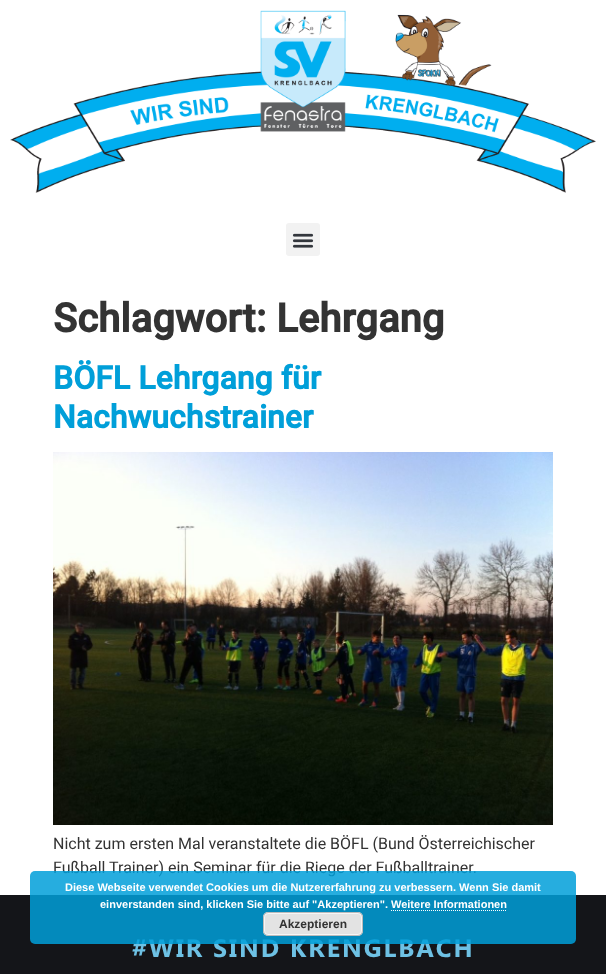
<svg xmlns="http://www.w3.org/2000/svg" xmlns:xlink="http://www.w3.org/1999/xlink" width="606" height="974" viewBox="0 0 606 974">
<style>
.cls-1{font:bold 40px Roboto;fill:#333333}
.cls-2{font:bold 32px Roboto;fill:#009fd9}
.cls-3{font:16px Roboto;fill:#333333}
.cls-4{font:bold 25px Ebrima;letter-spacing:2px;fill:#6ec1e4}
.cls-5{font:bold 12px Liberation Sans;fill:#333333}
.cls-6{font:bold 11px Liberation Sans;fill:#ffffff}
</style>
<rect width="100%" height="100%" fill="#ffffff"/>
<image xlink:href="image0.png" x="10" y="10" width="586" height="183"/>
<rect fill="#f2f2f2" x="286" y="223" width="34" height="33" rx="3"/>
<image xlink:href="image1.png" x="292" y="233" width="22" height="15"/>
<image xlink:href="image2.png" x="53" y="452" width="500" height="373"/>
<rect fill="#141519" x="0" y="895" width="606" height="79"/>
<text class="cls-1" x="53" y="332">Schlagwort: Lehrgang</text>
<text class="cls-2"><tspan x="53" y="389">BÖFL Lehrgang für</tspan><tspan x="53" y="428">Nachwuchstrainer</tspan></text>
<text class="cls-3"><tspan x="53" y="849">Nicht zum ersten Mal veranstaltete die BÖFL (Bund Österreichischer</tspan><tspan x="53" y="873">Fußball Trainer) ein Seminar für die Riege der Fußballtrainer.</tspan></text>
<text class="cls-4" x="132" y="957">#WIR SIND KRENGLBACH</text>
<rect fill="#009fd9" fill-opacity="0.85" x="30" y="871" width="546" height="73" rx="5"/>
<rect fill="#e3e3e3" x="263" y="912" width="100" height="24" rx="5"/>
<rect fill="none" stroke="#f6f6f6" x="264.5" y="913.5" width="97" height="21" rx="3.5"/>
<rect fill="none" stroke="#bbbbbb" x="263.5" y="912.5" width="99" height="23" rx="4.5"/>
<text class="cls-5" x="279" y="928">Akzeptieren</text>
<path fill="none" stroke="#ffffff" stroke-dasharray="1 1" d="M391 910.5H507"/>
<text class="cls-6" x="100" y="908">einverstanden sind, klicken Sie bitte auf "Akzeptieren". Weitere Informationen</text>
<text class="cls-6" x="65" y="891">Diese Webseite verwendet Cookies um die Nutzererfahrung zu verbessern. Wenn Sie damit</text>
</svg>
